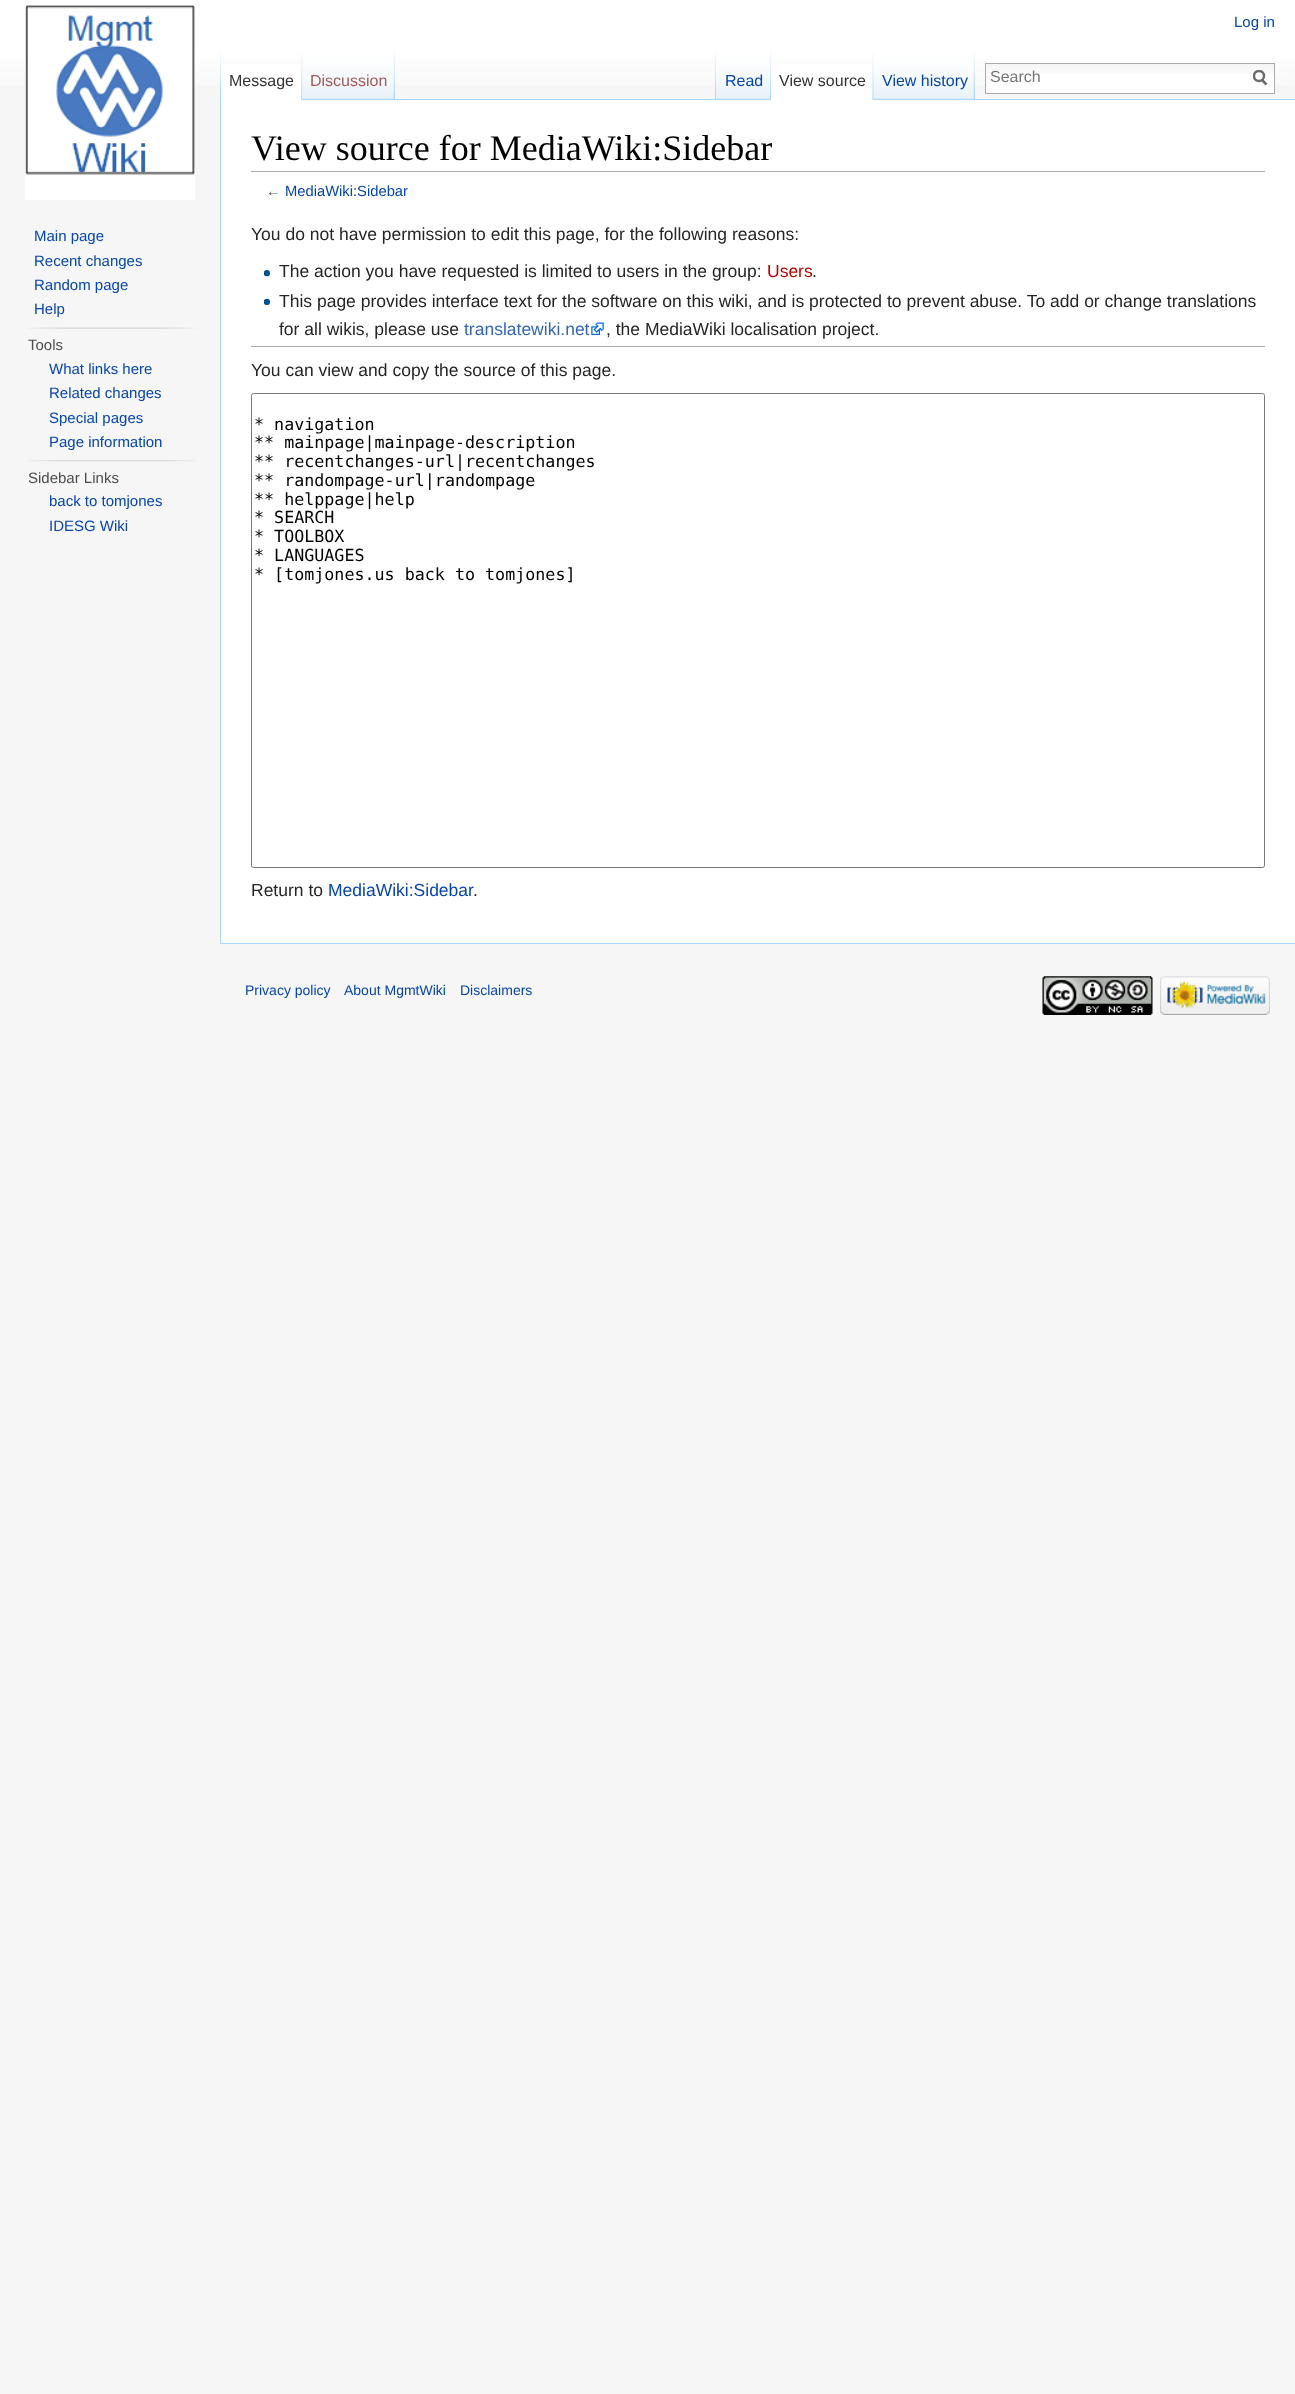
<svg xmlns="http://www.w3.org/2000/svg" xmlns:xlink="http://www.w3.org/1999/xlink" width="1295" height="2394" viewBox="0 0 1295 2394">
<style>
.cls-1{font:15px Liberation Sans;fill:#0645ad}
.cls-2{font:16px Liberation Sans;fill:#333333}
.cls-3{font:16px Liberation Sans;fill:#a55858}
.cls-4{font:16px Liberation Sans;fill:#0645ad}
.cls-5{font:16px Liberation Sans;fill:#757575}
.cls-6{font:15px Liberation Sans;fill:#4d4d4d}
.cls-7{font:36px Liberation Serif;fill:#000000}
.cls-8{font:14.75px Liberation Sans;fill:#545454}
.cls-9{font:14.75px Liberation Sans;fill:#0645ad}
.cls-10{font:17.5px Liberation Sans;fill:#252525}
.cls-11{font:17.5px Liberation Sans;fill:#ba0000}
.cls-12{font:17.5px Liberation Sans;fill:#3366bb}
.cls-13{font:16.7px DejaVu Sans Mono;fill:#000000}
.cls-14{font:17.5px Liberation Sans;fill:#0645ad}
.cls-15{font:14px Liberation Sans;fill:#0645ad}
</style>
<defs>
<linearGradient id="g1" gradientUnits="userSpaceOnUse" x1="648" y1="0" x2="648" y2="100"><stop offset="0.5" stop-color="#ffffff"/><stop offset="1" stop-color="#f6f6f6"/></linearGradient>
<clipPath id="clip1"><rect x="1253" y="70" width="15" height="16"/></clipPath>
</defs>
<rect width="100%" height="100%" fill="#f6f6f6"/>
<rect fill="url(#g1)" x="0" y="0" width="1295" height="86"/>
<image xlink:href="image0.png" x="220" y="50" width="1" height="49"/>
<rect fill="#ffffff" x="221" y="64" width="82" height="36"/>
<image xlink:href="image1.png" x="301" y="52" width="2" height="48"/>
<image xlink:href="image2.png" x="302" y="50" width="93" height="50"/>
<image xlink:href="image3.png" x="393" y="50" width="2" height="49"/>
<image xlink:href="image4.png" x="715" y="50" width="2" height="49"/>
<rect fill="#a7d7f9" x="395" y="99" width="900" height="1"/>
<image xlink:href="image5.png" x="716" y="50" width="55" height="50"/>
<image xlink:href="image6.png" x="770" y="50" width="1" height="49"/>
<rect fill="#ffffff" x="771" y="64" width="103" height="36"/>
<image xlink:href="image7.png" x="872" y="52" width="2" height="48"/>
<image xlink:href="image8.png" x="873" y="50" width="102" height="50"/>
<image xlink:href="image3.png" x="973" y="50" width="2" height="49"/>
<rect fill="#ffffff" x="986" y="74" width="288" height="19"/>
<image xlink:href="image9.png" x="986" y="64" width="288" height="10"/>
<rect fill="none" stroke="#aaaaaa" x="985.5" y="63.5" width="289" height="30"/>
<path fill="none" stroke="#6c6c6c" stroke-width="2.5" d="M1266.5 84.5L1261.5 79.5"/>
<g clip-path="url(#clip1)">
<circle fill="none" stroke="#6c6c6c" stroke-width="2.5" cx="1259" cy="76" r="5"/>
</g>
<image xlink:href="image10.png" x="25" y="5" width="170" height="195"/>
<image xlink:href="image11.png" x="27" y="327" width="170" height="2"/>
<image xlink:href="image12.png" x="27" y="460" width="170" height="2"/>
<rect fill="#ffffff" x="221" y="100" width="1074" height="843"/>
<rect fill="#a7d7f9" x="220" y="943" width="1075" height="1"/>
<rect fill="#a7d7f9" x="220" y="99" width="1" height="845"/>
<rect fill="#aaaaaa" x="251" y="171" width="1014" height="1"/>
<image xlink:href="image13.png" x="264" y="270" width="6" height="7"/>
<image xlink:href="image14.png" x="264" y="298" width="6" height="7"/>
<image xlink:href="image15.png" x="591" y="322" width="13" height="13"/>
<rect fill="#aaaaaa" x="251" y="346" width="1014" height="1"/>
<rect fill="none" stroke="#767676" x="251.5" y="393.5" width="1013" height="474" rx="2"/>
<image xlink:href="image16.png" x="1042" y="976" width="111" height="39"/>
<image xlink:href="image17.png" x="1160" y="976" width="110" height="39"/>
<text class="cls-1" x="1234" y="27">Log in</text>
<text class="cls-2" x="229" y="86">Message</text>
<text class="cls-3" x="310" y="86">Discussion</text>
<text class="cls-4" x="725" y="86">Read</text>
<text class="cls-2" x="779" y="86">View source</text>
<text class="cls-4" x="882" y="86">View history</text>
<text class="cls-5" x="990" y="82">Search</text>
<text class="cls-1"><tspan x="34" y="241">Main page</tspan><tspan x="34" y="266">Recent changes</tspan><tspan x="34" y="290">Random page</tspan><tspan x="34" y="314">Help</tspan></text>
<text class="cls-6" x="28" y="350">Tools</text>
<text class="cls-1"><tspan x="49" y="374">What links here</tspan><tspan x="49" y="398">Related changes</tspan><tspan x="49" y="423">Special pages</tspan><tspan x="49" y="447">Page information</tspan></text>
<text class="cls-6" x="28" y="483">Sidebar Links</text>
<text class="cls-1"><tspan x="49" y="506">back to tomjones</tspan><tspan x="49" y="531">IDESG Wiki</tspan></text>
<text class="cls-7" x="251" y="160">View source for MediaWiki:Sidebar</text>
<text class="cls-8" x="266" y="196">←</text>
<text class="cls-9" x="285" y="196">MediaWiki:Sidebar</text>
<text class="cls-10" x="251" y="240">You do not have permission to edit this page, for the following reasons:</text>
<text class="cls-10" x="279" y="277">The action you have requested is limited to users in the group:</text>
<text class="cls-11" x="767" y="277">Users</text>
<text class="cls-10" x="812" y="277">.</text>
<text class="cls-10"><tspan x="279" y="307">This page provides interface text for the software on this wiki, and is protected to prevent abuse. To add or change translations</tspan><tspan x="279" y="335">for all wikis, please use</tspan></text>
<text class="cls-12" x="464" y="335">translatewiki.net</text>
<text class="cls-10" x="606" y="335">, the MediaWiki localisation project.</text>
<text class="cls-10" x="251" y="376">You can view and copy the source of this page.</text>
<text class="cls-13"><tspan x="254" y="430">* navigation</tspan><tspan x="254" y="448">** mainpage|mainpage-description</tspan><tspan x="254" y="467">** recentchanges-url|recentchanges</tspan><tspan x="254" y="486">** randompage-url|randompage</tspan><tspan x="254" y="505">** helppage|help</tspan><tspan x="254" y="523">* SEARCH</tspan><tspan x="254" y="542">* TOOLBOX</tspan><tspan x="254" y="561">* LANGUAGES</tspan><tspan x="254" y="580">* [tomjones.us back to tomjones]</tspan></text>
<text class="cls-10" x="251" y="896">Return to</text>
<text class="cls-14" x="328" y="896">MediaWiki:Sidebar</text>
<text class="cls-10" x="473" y="896">.</text>
<text class="cls-15" x="245" y="995">Privacy policy</text>
<text class="cls-15" x="344" y="995">About MgmtWiki</text>
<text class="cls-15" x="460" y="995">Disclaimers</text>
</svg>
